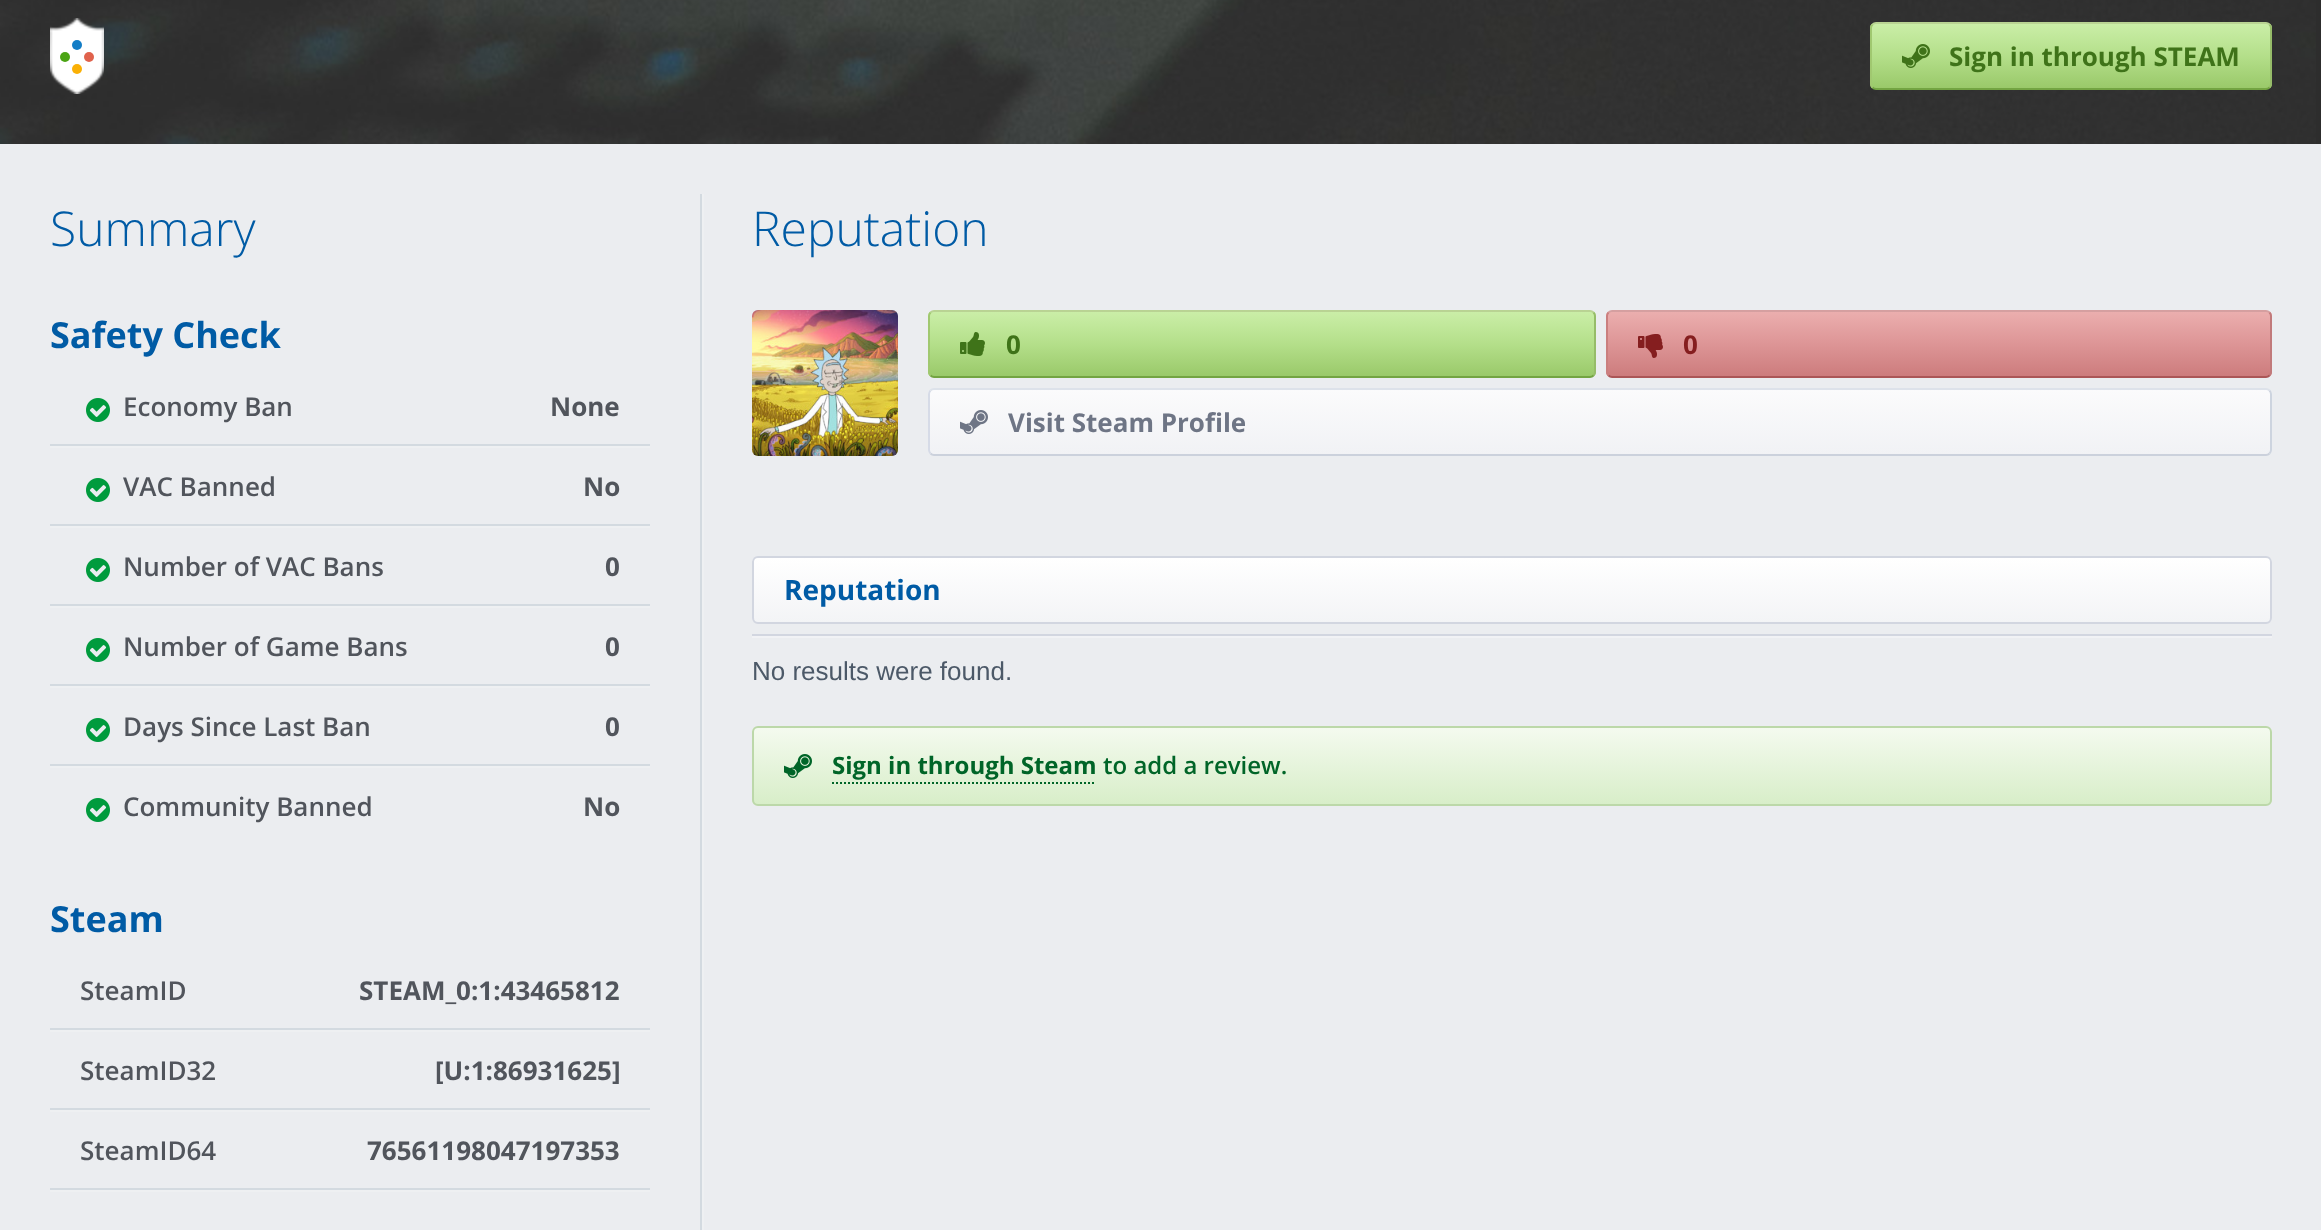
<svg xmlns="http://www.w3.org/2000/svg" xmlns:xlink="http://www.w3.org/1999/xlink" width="2321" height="1230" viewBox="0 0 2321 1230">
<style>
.cls-1{font:bold 26px Open Sans;fill:#3f7319}
.cls-2{font:300 48px Open Sans;fill:#005ba5}
.cls-3{font:bold 36px Open Sans;fill:#005ba5}
.cls-4{font:600 26px Open Sans;fill:#51555c}
.cls-5{font:bold 26px Open Sans;fill:#51555c}
.cls-6{font:bold 26px Open Sans;fill:#851e1f}
.cls-7{font:bold 26px Open Sans;fill:#6e7585}
.cls-8{font:bold 28px Open Sans;fill:#005ba5}
.cls-9{font:26px Liberation Sans;fill:#4c5968}
.cls-10{font:bold 24px Open Sans;fill:#006528}
.cls-11{font:600 24px Open Sans;fill:#006528}
</style>
<defs>
<clipPath id="clip1"><rect x="1870" y="22" width="402" height="68" rx="6"/></clipPath>
<linearGradient id="g1" gradientUnits="userSpaceOnUse" x1="2071" y1="24" x2="2071" y2="88"><stop offset="0" stop-color="#caeea7"/><stop offset="0.5" stop-color="#b4df8a"/><stop offset="1" stop-color="#9ac96a"/></linearGradient>
<clipPath id="clip2"><rect x="928" y="310" width="668" height="68" rx="6"/></clipPath>
<linearGradient id="g2" gradientUnits="userSpaceOnUse" x1="1262" y1="312" x2="1262" y2="376"><stop offset="0" stop-color="#caeea7"/><stop offset="0.5" stop-color="#b4df8a"/><stop offset="1" stop-color="#9ac96a"/></linearGradient>
<clipPath id="clip3"><rect x="1606" y="310" width="666" height="68" rx="6"/></clipPath>
<linearGradient id="g3" gradientUnits="userSpaceOnUse" x1="1939" y1="312" x2="1939" y2="376"><stop offset="0" stop-color="#ebaeae"/><stop offset="0.5" stop-color="#dd9596"/><stop offset="1" stop-color="#cd7c7d"/></linearGradient>
<clipPath id="clip4"><rect x="928" y="388" width="1344" height="68" rx="6"/></clipPath>
<linearGradient id="g4" gradientUnits="userSpaceOnUse" x1="1600" y1="390" x2="1600" y2="454"><stop offset="0" stop-color="#fbfbfc"/><stop offset="1" stop-color="#f1f2f5"/></linearGradient>
<clipPath id="clip5"><rect x="752" y="556" width="1520" height="68" rx="6"/></clipPath>
<linearGradient id="g5" gradientUnits="userSpaceOnUse" x1="1512" y1="558" x2="1512" y2="622"><stop offset="0" stop-color="#ffffff"/><stop offset="1" stop-color="#f3f4f6"/></linearGradient>
<clipPath id="clip6"><rect x="752" y="726" width="1520" height="80" rx="6"/></clipPath>
<linearGradient id="g6" gradientUnits="userSpaceOnUse" x1="1512" y1="728" x2="1512" y2="804"><stop offset="0" stop-color="#f4faef"/><stop offset="1" stop-color="#d8eec9"/></linearGradient>
</defs>
<rect width="100%" height="100%" fill="#2d2d2d"/>
<image xlink:href="image0.png" x="0" y="0" width="2316" height="144"/>
<image xlink:href="image1.png" x="50" y="18" width="54" height="76"/>
<circle fill="#137dc6" cx="77" cy="45" r="5"/>
<circle fill="#4ba414" cx="65" cy="57" r="5"/>
<circle fill="#e0624c" cx="89" cy="57" r="5"/>
<circle fill="#fab005" cx="77" cy="69" r="5"/>
<g clip-path="url(#clip1)">
<rect fill="url(#g1)" x="1870" y="24" width="402" height="64"/>
</g>
<path fill="none" stroke="#b9d393" stroke-width="2" d="M1872.5 24.5C1873.5 23.5 1874.5 23 1876 23H2266C2267.5 23 2268.5 23.5 2269.5 24.5"/>
<path fill="none" stroke="#96bc69" stroke-width="2" d="M2269.5 24.5C2270.5 25.5 2271 26.5 2271 28V84C2271 85.5 2270.5 86.5 2269.5 87.5"/>
<path fill="none" stroke="#73a442" stroke-width="2" d="M2269.5 87.5C2268.5 88.5 2267.5 89 2266 89H1876C1874.5 89 1873.5 88.5 1872.5 87.5"/>
<path fill="none" stroke="#a0c870" stroke-width="2" d="M1872.5 87.5C1871.5 86.5 1871 85.5 1871 84V28C1871 26.5 1871.5 25.5 1872.5 24.5"/>
<image xlink:href="image2.png" x="1902" y="44" width="28" height="24"/>
<rect fill="#ebedf0" x="0" y="144" width="2321" height="1086"/>
<rect fill="#d3dae0" x="50" y="444" width="600" height="2"/>
<image xlink:href="image3.png" x="86" y="398" width="24" height="24"/>
<rect fill="#eef0f2" x="50" y="446" width="600" height="2"/>
<rect fill="#d3dae0" x="50" y="524" width="600" height="2"/>
<image xlink:href="image3.png" x="86" y="478" width="24" height="24"/>
<rect fill="#eef0f2" x="50" y="526" width="600" height="2"/>
<rect fill="#d3dae0" x="50" y="604" width="600" height="2"/>
<image xlink:href="image3.png" x="86" y="558" width="24" height="24"/>
<rect fill="#eef0f2" x="50" y="606" width="600" height="2"/>
<rect fill="#d3dae0" x="50" y="684" width="600" height="2"/>
<image xlink:href="image3.png" x="86" y="638" width="24" height="24"/>
<rect fill="#eef0f2" x="50" y="686" width="600" height="2"/>
<rect fill="#d3dae0" x="50" y="764" width="600" height="2"/>
<image xlink:href="image3.png" x="86" y="718" width="24" height="24"/>
<rect fill="#eef0f2" x="50" y="766" width="600" height="2"/>
<image xlink:href="image3.png" x="86" y="798" width="24" height="24"/>
<rect fill="#d3dae0" x="50" y="1028" width="600" height="2"/>
<rect fill="#eef0f2" x="50" y="1030" width="600" height="2"/>
<rect fill="#d3dae0" x="50" y="1108" width="600" height="2"/>
<rect fill="#eef0f2" x="50" y="1110" width="600" height="2"/>
<rect fill="#d3dae0" x="50" y="1188" width="600" height="2"/>
<rect fill="#eef0f2" x="50" y="1190" width="600" height="2"/>
<rect fill="#eef0f2" x="702" y="194" width="2" height="1036"/>
<rect fill="#d3dae0" x="700" y="194" width="2" height="1036"/>
<image xlink:href="image4.png" x="752" y="310" width="146" height="146"/>
<g clip-path="url(#clip2)">
<rect fill="url(#g2)" x="928" y="312" width="668" height="64"/>
</g>
<path fill="none" stroke="#b9d393" stroke-width="2" d="M930.5 312.5C931.5 311.5 932.5 311 934 311H1590C1591.5 311 1592.5 311.5 1593.5 312.5"/>
<path fill="none" stroke="#96bc69" stroke-width="2" d="M1593.5 312.5C1594.5 313.5 1595 314.5 1595 316V372C1595 373.5 1594.5 374.5 1593.5 375.5"/>
<path fill="none" stroke="#73a442" stroke-width="2" d="M1593.5 375.5C1592.5 376.5 1591.5 377 1590 377H934C932.5 377 931.5 376.5 930.5 375.5"/>
<path fill="none" stroke="#a0c870" stroke-width="2" d="M930.5 375.5C929.5 374.5 929 373.5 929 372V316C929 314.5 929.5 313.5 930.5 312.5"/>
<image xlink:href="image5.png" x="960" y="332" width="25" height="24"/>
<g clip-path="url(#clip3)">
<rect fill="url(#g3)" x="1606" y="312" width="666" height="64"/>
</g>
<path fill="none" stroke="#d59fa0" stroke-width="2" d="M1608.5 312.5C1609.5 311.5 1610.5 311 1612 311H2266C2267.5 311 2268.5 311.5 2269.5 312.5"/>
<path fill="none" stroke="#c17a7b" stroke-width="2" d="M2269.5 312.5C2270.5 313.5 2271 314.5 2271 316V372C2271 373.5 2270.5 374.5 2269.5 375.5"/>
<path fill="none" stroke="#ab5657" stroke-width="2" d="M2269.5 375.5C2268.5 376.5 2267.5 377 2266 377H1612C1610.5 377 1609.5 376.5 1608.5 375.5"/>
<path fill="none" stroke="#ca7f7f" stroke-width="2" d="M1608.5 375.5C1607.5 374.5 1607 373.5 1607 372V316C1607 314.5 1607.5 313.5 1608.5 312.5"/>
<image xlink:href="image6.png" x="1638" y="334" width="25" height="24"/>
<g clip-path="url(#clip4)">
<rect fill="url(#g4)" x="928" y="390" width="1344" height="64"/>
</g>
<path fill="none" stroke="#dde2ea" stroke-width="2" d="M930.5 390.5C931.5 389.5 932.5 389 934 389H2266C2267.5 389 2268.5 389.5 2269.5 390.5"/>
<path fill="none" stroke="#cdd4df" stroke-width="2" d="M2269.5 390.5C2270.5 391.5 2271 392.5 2271 394V450C2271 451.5 2270.5 452.5 2269.5 453.5"/>
<path fill="none" stroke="#cbd1dc" stroke-width="2" d="M2269.5 453.5C2268.5 454.5 2267.5 455 2266 455H934C932.5 455 931.5 454.5 930.5 453.5"/>
<path fill="none" stroke="#d6dbe7" stroke-width="2" d="M930.5 453.5C929.5 452.5 929 451.5 929 450V394C929 392.5 929.5 391.5 930.5 390.5"/>
<image xlink:href="image7.png" x="960" y="410" width="28" height="24"/>
<g clip-path="url(#clip5)">
<rect fill="url(#g5)" x="752" y="558" width="1520" height="64"/>
</g>
<rect fill="none" stroke="#d2d6e0" stroke-width="2" x="753" y="557" width="1518" height="66" rx="5"/>
<rect fill="#f1f2f5" x="752" y="636" width="1520" height="2"/>
<rect fill="#d2d6e0" x="752" y="634" width="1520" height="2"/>
<g clip-path="url(#clip6)">
<rect fill="url(#g6)" x="752" y="728" width="1520" height="76"/>
</g>
<rect fill="none" stroke="#bcd8a9" stroke-width="2" x="753" y="727" width="1518" height="78" rx="5"/>
<image xlink:href="image8.png" x="784" y="754" width="28" height="24"/>
<path fill="none" stroke="#006528" stroke-width="2" stroke-dasharray="2 2" d="M832 783H1096"/>
<text class="cls-1" x="1949" y="66">Sign in through STEAM</text>
<text class="cls-2" x="50" y="246">Summary</text>
<text class="cls-3" x="50" y="348">Safety Check</text>
<text class="cls-4" x="123" y="416">Economy Ban</text>
<text class="cls-5" x="550" y="416">None</text>
<text class="cls-4" x="123" y="496">VAC Banned</text>
<text class="cls-5" x="583" y="496">No</text>
<text class="cls-4" x="123" y="576">Number of VAC Bans</text>
<text class="cls-5" x="605" y="576">0</text>
<text class="cls-4" x="123" y="656">Number of Game Bans</text>
<text class="cls-5" x="605" y="656">0</text>
<text class="cls-4" x="123" y="736">Days Since Last Ban</text>
<text class="cls-5" x="605" y="736">0</text>
<text class="cls-4" x="123" y="816">Community Banned</text>
<text class="cls-5" x="583" y="816">No</text>
<text class="cls-3" x="50" y="932">Steam</text>
<text class="cls-4" x="80" y="1000">SteamID</text>
<text class="cls-5" x="359" y="1000">STEAM_0:1:43465812</text>
<text class="cls-4" x="80" y="1080">SteamID32</text>
<text class="cls-5" x="435" y="1080">[U:1:86931625]</text>
<text class="cls-4" x="80" y="1160">SteamID64</text>
<text class="cls-5" x="367" y="1160">76561198047197353</text>
<text class="cls-2" x="752" y="246">Reputation</text>
<text class="cls-1" x="1006" y="354">0</text>
<text class="cls-6" x="1683" y="354">0</text>
<text class="cls-7" x="1008" y="432">Visit Steam Profile</text>
<text class="cls-8" x="784" y="600">Reputation</text>
<text class="cls-9" x="752" y="680">No results were found.</text>
<text class="cls-10" x="832" y="774">Sign in through Steam</text>
<text class="cls-11" x="1103" y="774">to add a review.</text>
</svg>
